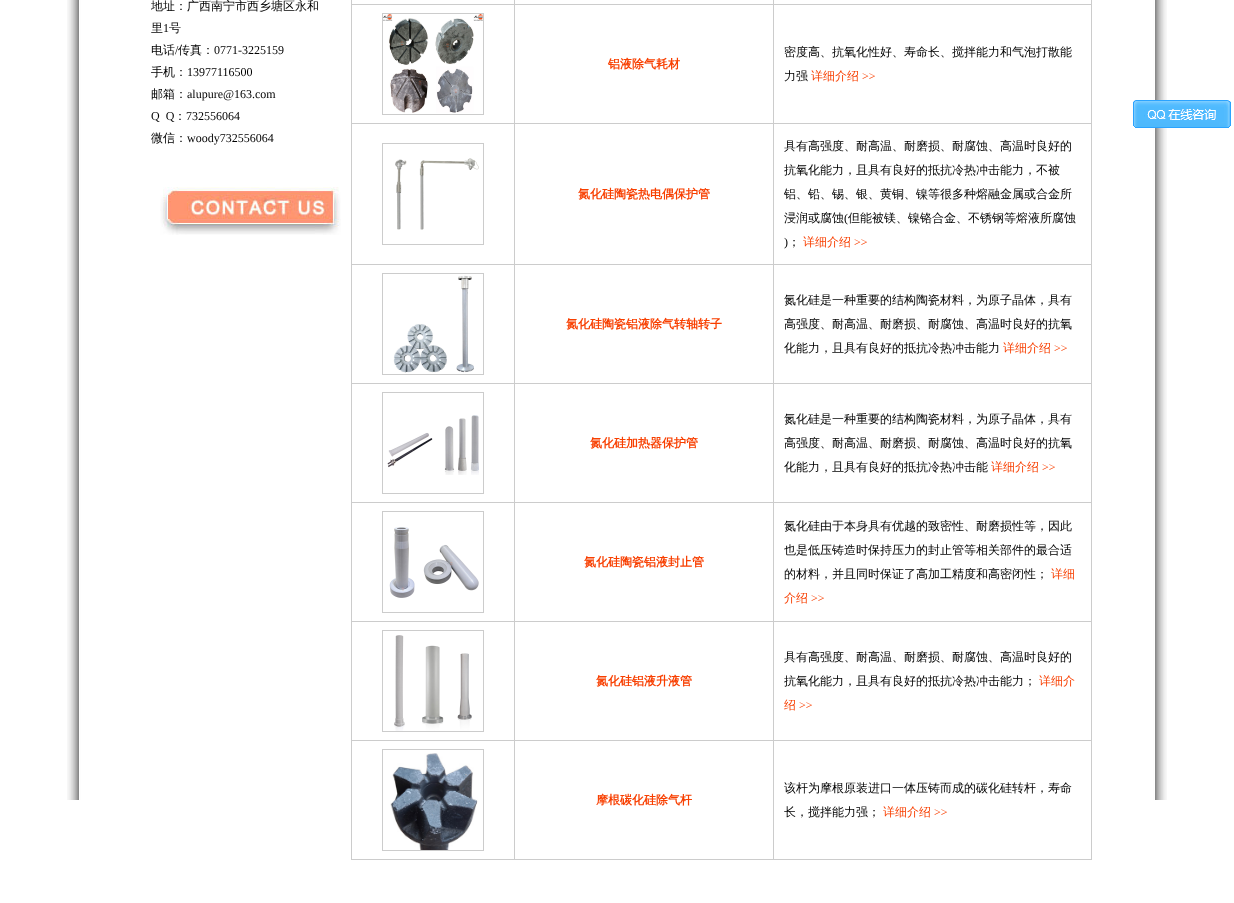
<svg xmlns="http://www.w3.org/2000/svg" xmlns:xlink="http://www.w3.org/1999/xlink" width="1234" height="903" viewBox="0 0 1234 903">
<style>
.cls-1{font:500 12px WenQuanYi Zen Hei;fill:#000000}
.cls-2{font:12px Liberation Serif;fill:#000000}
.cls-3{font:bold 12px WenQuanYi Zen Hei;fill:#f83f00}
.cls-4{font:500 12px WenQuanYi Zen Hei;fill:#f83f00}
.cls-5{font:12px Liberation Serif;fill:#f83f00}
</style>
<rect width="100%" height="100%" fill="#ffffff"/>
<image xlink:href="image0.png" x="67" y="0" width="1100" height="800"/>
<image xlink:href="image1.png" x="160" y="187" width="181" height="48"/>
<rect fill="#cccccc" x="351" y="859" width="741" height="1"/>
<rect fill="#cccccc" x="351" y="0" width="1" height="860"/>
<rect fill="#cccccc" x="514" y="0" width="1" height="4"/>
<rect fill="#cccccc" x="773" y="0" width="1" height="4"/>
<rect fill="#cccccc" x="1091" y="0" width="1" height="4"/>
<rect fill="#cccccc" x="352" y="4" width="740" height="1"/>
<rect fill="#cccccc" x="514" y="4" width="1" height="119"/>
<rect fill="none" stroke="#cccccc" x="382.5" y="13.5" width="101" height="101"/>
<image xlink:href="image2.png" x="383" y="14" width="100" height="99"/>
<rect fill="#cccccc" x="773" y="4" width="1" height="119"/>
<rect fill="#cccccc" x="1091" y="4" width="1" height="119"/>
<rect fill="#cccccc" x="352" y="123" width="740" height="1"/>
<rect fill="#cccccc" x="514" y="123" width="1" height="141"/>
<rect fill="none" stroke="#cccccc" x="382.5" y="143.5" width="101" height="101"/>
<image xlink:href="image3.png" x="395" y="158" width="84" height="72"/>
<rect fill="#cccccc" x="773" y="123" width="1" height="141"/>
<rect fill="#cccccc" x="1091" y="123" width="1" height="141"/>
<rect fill="#cccccc" x="352" y="264" width="740" height="1"/>
<rect fill="#cccccc" x="514" y="264" width="1" height="119"/>
<rect fill="none" stroke="#cccccc" x="382.5" y="273.5" width="101" height="101"/>
<image xlink:href="image4.png" x="393" y="275" width="81" height="98"/>
<rect fill="#cccccc" x="773" y="264" width="1" height="119"/>
<rect fill="#cccccc" x="1091" y="264" width="1" height="119"/>
<rect fill="#cccccc" x="352" y="383" width="740" height="1"/>
<rect fill="#cccccc" x="514" y="383" width="1" height="119"/>
<rect fill="none" stroke="#cccccc" x="382.5" y="392.5" width="101" height="101"/>
<image xlink:href="image5.png" x="387" y="415" width="92" height="60"/>
<rect fill="#cccccc" x="773" y="383" width="1" height="119"/>
<rect fill="#cccccc" x="1091" y="383" width="1" height="119"/>
<rect fill="#cccccc" x="352" y="502" width="740" height="1"/>
<rect fill="#cccccc" x="514" y="502" width="1" height="119"/>
<rect fill="none" stroke="#cccccc" x="382.5" y="511.5" width="101" height="101"/>
<image xlink:href="image6.png" x="389" y="527" width="90" height="71"/>
<rect fill="#cccccc" x="773" y="502" width="1" height="119"/>
<rect fill="#cccccc" x="1091" y="502" width="1" height="119"/>
<rect fill="#cccccc" x="352" y="621" width="740" height="1"/>
<rect fill="#cccccc" x="514" y="621" width="1" height="119"/>
<rect fill="none" stroke="#cccccc" x="382.5" y="630.5" width="101" height="101"/>
<image xlink:href="image7.png" x="394" y="635" width="78" height="96"/>
<rect fill="#cccccc" x="773" y="621" width="1" height="119"/>
<rect fill="#cccccc" x="1091" y="621" width="1" height="119"/>
<rect fill="#cccccc" x="352" y="740" width="740" height="1"/>
<rect fill="#cccccc" x="514" y="740" width="1" height="119"/>
<rect fill="none" stroke="#cccccc" x="382.5" y="749.5" width="101" height="101"/>
<image xlink:href="image8.png" x="390" y="753" width="88" height="97"/>
<rect fill="#cccccc" x="773" y="740" width="1" height="119"/>
<rect fill="#cccccc" x="1091" y="740" width="1" height="119"/>
<image xlink:href="image9.png" x="1133" y="100" width="98" height="28"/>
<text class="cls-1"><tspan x="151" y="10">地址：广西南宁市西乡塘区永和</tspan><tspan x="151" y="32">里</tspan></text>
<text class="cls-2" x="163" y="32">1</text>
<text class="cls-1" x="169" y="32">号</text>
<text class="cls-1" x="151" y="54">电话</text>
<text class="cls-2" x="175" y="54">/</text>
<text class="cls-1" x="178" y="54">传真：</text>
<text class="cls-2" x="214" y="54">0771-3225159</text>
<text class="cls-1" x="151" y="76">手机：</text>
<text class="cls-2" x="187" y="76">13977116500</text>
<text class="cls-1" x="151" y="98">邮箱：</text>
<text class="cls-2" x="187" y="98">alupure@163.com</text>
<text class="cls-2" xml:space="preserve" x="151" y="120">Q  Q</text>
<text class="cls-1" x="174" y="120">：</text>
<text class="cls-2" x="186" y="120">732556064</text>
<text class="cls-1" x="151" y="142">微信：</text>
<text class="cls-2" x="187" y="142">woody732556064</text>
<text class="cls-3" x="608" y="68">铝液除气耗材</text>
<text class="cls-1" x="784" y="56">密度高、抗氧化性好、寿命长、搅拌能力和气泡打散能</text>
<text class="cls-1" x="784" y="80">力强</text>
<text class="cls-4" x="811" y="80">详细介绍</text>
<text class="cls-5" x="862" y="80">&gt;&gt;</text>
<text class="cls-3" x="578" y="198">氮化硅陶瓷热电偶保护管</text>
<text class="cls-1" x="784" y="150">具有高强度、耐高温、耐磨损、耐腐蚀、高温时良好的</text>
<text class="cls-1" x="784" y="174">抗氧化能力，且具有良好的抵抗冷热冲击能力，不被</text>
<text class="cls-1" x="784" y="198">铝、铅、锡、银、黄铜、镍等很多种熔融金属或合金所</text>
<text class="cls-1" x="784" y="222">浸润或腐蚀</text>
<text class="cls-2" x="844" y="222">(</text>
<text class="cls-1" x="848" y="222">但能被镁、镍铬合金、不锈钢等熔液所腐蚀</text>
<text class="cls-2" x="784" y="246">)</text>
<text class="cls-1" x="788" y="246">；</text>
<text class="cls-4" x="803" y="246">详细介绍</text>
<text class="cls-5" x="854" y="246">&gt;&gt;</text>
<text class="cls-3" x="566" y="328">氮化硅陶瓷铝液除气转轴转子</text>
<text class="cls-1" x="784" y="304">氮化硅是一种重要的结构陶瓷材料，为原子晶体，具有</text>
<text class="cls-1" x="784" y="328">高强度、耐高温、耐磨损、耐腐蚀、高温时良好的抗氧</text>
<text class="cls-1" x="784" y="352">化能力，且具有良好的抵抗冷热冲击能力</text>
<text class="cls-4" x="1003" y="352">详细介绍</text>
<text class="cls-5" x="1054" y="352">&gt;&gt;</text>
<text class="cls-3" x="590" y="447">氮化硅加热器保护管</text>
<text class="cls-1" x="784" y="423">氮化硅是一种重要的结构陶瓷材料，为原子晶体，具有</text>
<text class="cls-1" x="784" y="447">高强度、耐高温、耐磨损、耐腐蚀、高温时良好的抗氧</text>
<text class="cls-1" x="784" y="471">化能力，且具有良好的抵抗冷热冲击能</text>
<text class="cls-4" x="991" y="471">详细介绍</text>
<text class="cls-5" x="1042" y="471">&gt;&gt;</text>
<text class="cls-3" x="584" y="566">氮化硅陶瓷铝液封止管</text>
<text class="cls-1" x="784" y="530">氮化硅由于本身具有优越的致密性、耐磨损性等，因此</text>
<text class="cls-1" x="784" y="554">也是低压铸造时保持压力的封止管等相关部件的最合适</text>
<text class="cls-1" x="784" y="578">的材料，并且同时保证了高加工精度和高密闭性；</text>
<text class="cls-4" x="1051" y="578">详细</text>
<text class="cls-4" x="784" y="602">介绍</text>
<text class="cls-5" x="811" y="602">&gt;&gt;</text>
<text class="cls-3" x="596" y="685">氮化硅铝液升液管</text>
<text class="cls-1" x="784" y="661">具有高强度、耐高温、耐磨损、耐腐蚀、高温时良好的</text>
<text class="cls-1" x="784" y="685">抗氧化能力，且具有良好的抵抗冷热冲击能力；</text>
<text class="cls-4" x="1039" y="685">详细介</text>
<text class="cls-4" x="784" y="709">绍</text>
<text class="cls-5" x="799" y="709">&gt;&gt;</text>
<text class="cls-3" x="596" y="804">摩根碳化硅除气杆</text>
<text class="cls-1" x="784" y="792">该杆为摩根原装进口一体压铸而成的碳化硅转杆，寿命</text>
<text class="cls-1" x="784" y="816">长，搅拌能力强；</text>
<text class="cls-4" x="883" y="816">详细介绍</text>
<text class="cls-5" x="934" y="816">&gt;&gt;</text>
</svg>
